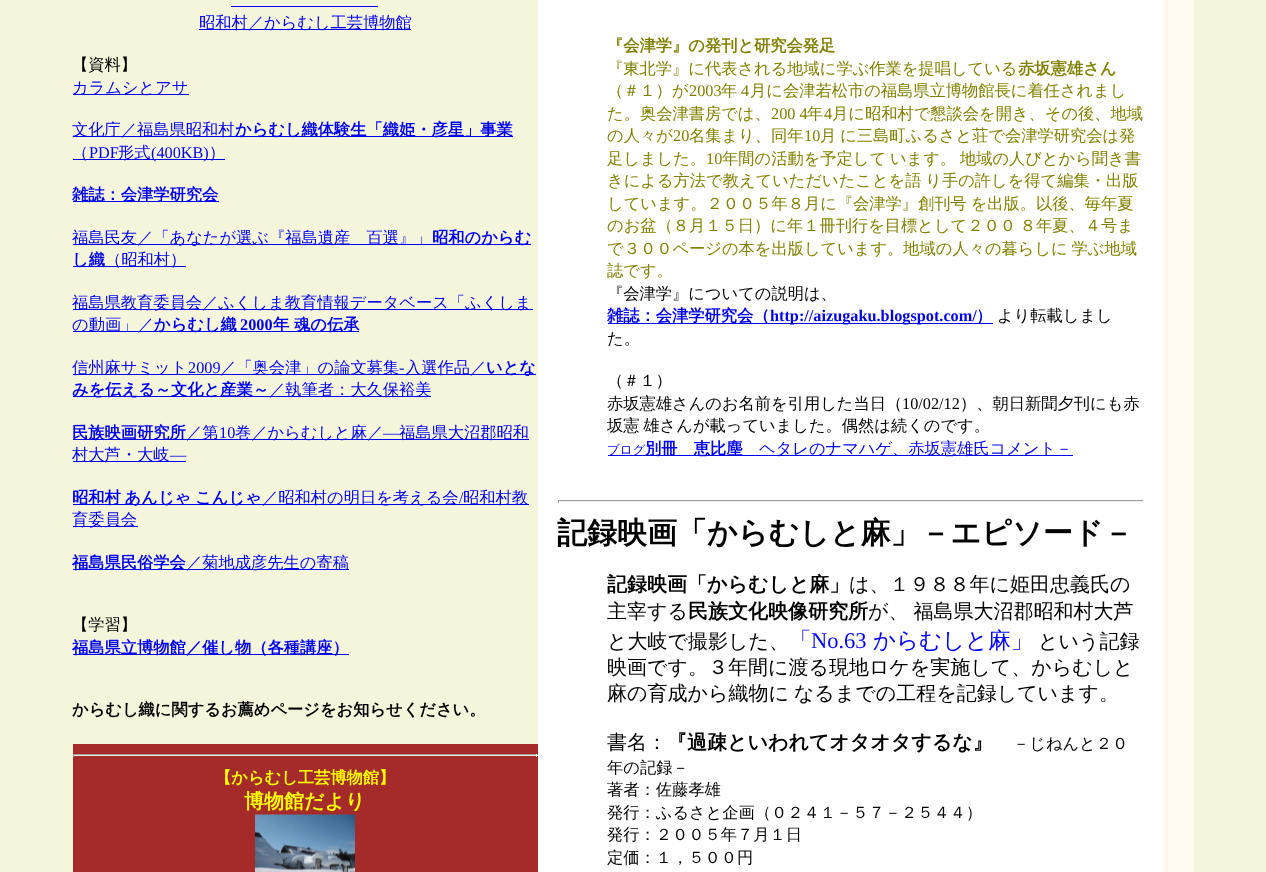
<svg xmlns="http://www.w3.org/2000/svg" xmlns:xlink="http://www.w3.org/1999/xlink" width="1266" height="872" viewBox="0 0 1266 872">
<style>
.cls-1{font:500 16.25px WenQuanYi Zen Hei;fill:#0000ee}
.cls-2{font:500 16.25px WenQuanYi Zen Hei;fill:#000000}
.cls-3{font:bold 16.25px WenQuanYi Zen Hei;fill:#0000ee}
.cls-4{font:16.25px Liberation Serif;fill:#0000ee}
.cls-5{font:bold 16.25px Liberation Serif;fill:#0000ee}
.cls-6{font:bold 16.25px WenQuanYi Zen Hei;fill:#000000}
.cls-7{font:bold 16.25px WenQuanYi Zen Hei;fill:#ffff00}
.cls-8{font:bold 20px WenQuanYi Zen Hei;fill:#ffff00}
.cls-9{font:bold 16.25px WenQuanYi Zen Hei;fill:#808000}
.cls-10{font:500 16.25px WenQuanYi Zen Hei;fill:#808000}
.cls-11{font:16.25px Liberation Serif;fill:#808000}
.cls-12{font:16.25px Liberation Serif;fill:#000000}
.cls-13{font:500 12.5px WenQuanYi Zen Hei;fill:#0000ee}
.cls-14{font:bold 30px WenQuanYi Zen Hei;fill:#000000}
.cls-15{font:bold 20px WenQuanYi Zen Hei;fill:#000000}
.cls-16{font:500 20px WenQuanYi Zen Hei;fill:#000000}
.cls-17{font:500 22.5px WenQuanYi Zen Hei;fill:#0000ff}
.cls-18{font:22.5px Liberation Serif;fill:#0000ff}
</style>
<rect width="100%" height="100%" fill="#f5f5dc"/>
<rect fill="#ffffff" x="538" y="0" width="625" height="872"/>
<rect fill="#0000ee" x="231" y="6" width="147" height="1"/>
<rect fill="#0000ee" x="199" y="29" width="212" height="1"/>
<rect fill="#0000ee" x="73" y="94" width="116" height="1"/>
<rect fill="#0000ee" x="73" y="136" width="440" height="1"/>
<rect fill="#0000ee" x="73" y="159" width="152" height="1"/>
<rect fill="#0000ee" x="73" y="201" width="146" height="1"/>
<rect fill="#0000ee" x="73" y="244" width="458" height="1"/>
<rect fill="#0000ee" x="73" y="266" width="113" height="1"/>
<rect fill="#0000ee" x="73" y="309" width="460" height="1"/>
<rect fill="#0000ee" x="73" y="331" width="286" height="1"/>
<rect fill="#0000ee" x="73" y="374" width="463" height="1"/>
<rect fill="#0000ee" x="73" y="396" width="358" height="1"/>
<rect fill="#0000ee" x="73" y="439" width="456" height="1"/>
<rect fill="#0000ee" x="73" y="461" width="113" height="1"/>
<rect fill="#0000ee" x="73" y="504" width="456" height="1"/>
<rect fill="#0000ee" x="73" y="526" width="65" height="1"/>
<rect fill="#0000ee" x="73" y="569" width="276" height="1"/>
<rect fill="#0000ee" x="73" y="654" width="276" height="1"/>
<rect fill="#a52a2a" x="73" y="744" width="465" height="128"/>
<rect fill="#9f9f9f" x="73" y="754" width="465" height="1"/>
<rect fill="#eeeeee" x="536" y="754" width="1" height="3"/>
<rect fill="#eeeeee" x="73" y="755" width="465" height="1"/>
<rect fill="#9f9f9f" x="73" y="754" width="1" height="3"/>
<image xlink:href="image0.png" x="255" y="814" width="100" height="58"/>
<rect fill="#0000ee" x="608" y="323" width="385" height="1"/>
<rect fill="#0000ee" x="608" y="455" width="37" height="1"/>
<rect fill="#0000ee" x="645" y="455" width="428" height="1"/>
<rect fill="#9f9f9f" x="558" y="500" width="586" height="1"/>
<rect fill="#eeeeee" x="1143" y="500" width="1" height="3"/>
<rect fill="#eeeeee" x="558" y="501" width="586" height="1"/>
<rect fill="#9f9f9f" x="558" y="500" width="1" height="3"/>
<rect fill="#fffaf0" x="1163" y="0" width="31" height="872"/>
<text class="cls-1" x="199" y="28">昭和村／からむし工芸博物館</text>
<text class="cls-2" x="72" y="70">【資料】</text>
<text class="cls-1" x="72" y="93">カラムシとアサ</text>
<text class="cls-1" x="72" y="135">文化庁／福島県昭和村</text>
<text class="cls-3" x="235" y="135">からむし織体験生「織姫・彦星」事業</text>
<text class="cls-1" x="72" y="158">（</text>
<text class="cls-4" x="89" y="158">PDF</text>
<text class="cls-1" x="118" y="158">形式</text>
<text class="cls-4" x="151" y="158">(400KB)</text>
<text class="cls-1" x="209" y="158">）</text>
<text class="cls-3" x="72" y="200">雑誌：会津学研究会</text>
<text class="cls-1" x="72" y="243">福島民友／「あなたが選ぶ『福島遺産　百選』」</text>
<text class="cls-3" x="432" y="243">昭和のからむ</text>
<text class="cls-3" x="72" y="265">し織</text>
<text class="cls-1" x="105" y="265">（昭和村）</text>
<text class="cls-1"><tspan x="72" y="308">福島県教育委員会／ふくしま教育情報データベース「ふくしま</tspan><tspan x="72" y="330">の動画」／</tspan></text>
<text class="cls-3" x="154" y="330">からむし織</text>
<text class="cls-5" x="240" y="330">2000</text>
<text class="cls-3" x="273" y="330">年 魂の伝承</text>
<text class="cls-1" x="72" y="373">信州麻サミット</text>
<text class="cls-4" x="188" y="373">2009</text>
<text class="cls-1" x="220" y="373">／「奥会津」の論文募集</text>
<text class="cls-4" x="399" y="373">-</text>
<text class="cls-1" x="405" y="373">入選作品／</text>
<text class="cls-3" x="486" y="373">いとな</text>
<text class="cls-3" x="72" y="395">みを伝える～文化と産業～</text>
<text class="cls-1" x="269" y="395">／執筆者：大久保裕美</text>
<text class="cls-3" x="72" y="438">民族映画研究所</text>
<text class="cls-1" x="186" y="438">／第</text>
<text class="cls-4" x="219" y="438">10</text>
<text class="cls-1" x="235" y="438">巻／からむしと麻／</text>
<text class="cls-4" x="383" y="438">―</text>
<text class="cls-1" x="399" y="438">福島県大沼郡昭和</text>
<text class="cls-1" x="72" y="460">村大芦・大岐</text>
<text class="cls-4" x="170" y="460">―</text>
<text class="cls-3" x="72" y="503" word-spacing="-1">昭和村 あんじゃ こんじゃ</text>
<text class="cls-1" x="262" y="503">／昭和村の明日を考える会</text>
<text class="cls-4" x="459" y="503">/</text>
<text class="cls-1" x="463" y="503">昭和村教</text>
<text class="cls-1" x="72" y="525">育委員会</text>
<text class="cls-3" x="72" y="568">福島県民俗学会</text>
<text class="cls-1" x="186" y="568">／菊地成彦先生の寄稿</text>
<text class="cls-2" x="72" y="630">【学習】</text>
<text class="cls-3" x="72" y="653">福島県立博物館／催し物（各種講座）</text>
<text class="cls-6" x="72" y="715">からむし織に関するお薦めページをお知らせください。</text>
<text class="cls-7" x="215" y="783">【からむし工芸博物館】</text>
<text class="cls-8" x="244" y="808">博物館だより</text>
<text class="cls-9" x="607" y="51">『会津学』の発刊と研究会発足</text>
<text class="cls-10" x="607" y="74">『東北学』に代表される地域に学ぶ作業を提唱している</text>
<text class="cls-9" x="1018" y="74">赤坂憲雄さん</text>
<text class="cls-10" x="607" y="96">（＃１）が</text>
<text class="cls-11" x="689" y="96">2003</text>
<text class="cls-10" x="721" y="96">年</text>
<text class="cls-11" x="741" y="96">4</text>
<text class="cls-10" x="750" y="96">月に会津若松市の福島県立博物館長に着任されまし</text>
<text class="cls-10" x="607" y="119">た。奥会津書房では、</text>
<text class="cls-11" x="771" y="119">200 4</text>
<text class="cls-10" x="807" y="119">年</text>
<text class="cls-11" x="824" y="119">4</text>
<text class="cls-10" x="832" y="119">月に昭和村で懇談会を開き、その後、地域</text>
<text class="cls-10" x="607" y="141">の人々が</text>
<text class="cls-11" x="673" y="141">20</text>
<text class="cls-10" x="689" y="141">名集まり、同年</text>
<text class="cls-11" x="804" y="141">10</text>
<text class="cls-10" x="820" y="141" word-spacing="-1">月 に三島町ふるさと荘で会津学研究会は発</text>
<text class="cls-10" x="607" y="164">足しました。</text>
<text class="cls-11" x="706" y="164">10</text>
<text class="cls-10" x="722" y="164" word-spacing="-1">年間の活動を予定して います。 地域の人びとから聞き書</text>
<text class="cls-10"><tspan x="607" y="186" word-spacing="-1">きによる方法で教えていただいたことを語 り手の許しを得て編集・出版</tspan><tspan x="607" y="209" word-spacing="-1">しています。２００５年８月に『会津学』創刊号 を出版。以後、毎年夏</tspan><tspan x="607" y="231" word-spacing="-1">のお盆（８月１５日）に年１冊刊行を目標として２００ ８年夏、４号ま</tspan><tspan x="607" y="254" word-spacing="-1">で３００ページの本を出版しています。地域の人々の暮らしに 学ぶ地域</tspan><tspan x="607" y="276">誌です。</tspan></text>
<text class="cls-2" x="607" y="299">『会津学』についての説明は、</text>
<text class="cls-3" x="607" y="321">雑誌：会津学研究会（</text>
<text class="cls-5" x="770" y="321">http://aizugaku.blogspot.com/</text>
<text class="cls-3" x="976" y="321">）</text>
<text class="cls-2" x="997" y="321">より転載しまし</text>
<text class="cls-2" x="607" y="344">た。</text>
<text class="cls-2"><tspan x="607" y="386">（＃１）</tspan><tspan x="607" y="409">赤坂憲雄さんのお名前を引用した当日（</tspan></text>
<text class="cls-12" x="902" y="409">10/02/12</text>
<text class="cls-2" x="960" y="409">）、朝日新聞夕刊にも赤</text>
<text class="cls-2" x="607" y="431" word-spacing="-1">坂憲 雄さんが載っていました。偶然は続くのです。</text>
<text class="cls-13" x="607" y="454">ブログ</text>
<text class="cls-3" x="645" y="454">別冊　恵比塵</text>
<text class="cls-1" x="759" y="454">ヘタレのナマハゲ、赤坂憲雄氏コメント－</text>
<text class="cls-14" x="557" y="543">記録映画「からむしと麻」－エピソード－</text>
<text class="cls-15" x="607" y="591">記録映画「からむしと麻」</text>
<text class="cls-16" x="849" y="591">は、１９８８年に姫田忠義氏の</text>
<text class="cls-16" x="607" y="618">主宰する</text>
<text class="cls-15" x="688" y="618">民族文化映像研究所</text>
<text class="cls-16" x="868" y="618" word-spacing="-1">が、 福島県大沼郡昭和村大芦</text>
<text class="cls-16" x="607" y="648">と大岐で撮影した、</text>
<text class="cls-17" x="789" y="648">「</text>
<text class="cls-18" x="811" y="648">No.63</text>
<text class="cls-17" x="873" y="648">からむしと麻」</text>
<text class="cls-16" x="1038" y="648">という記録</text>
<text class="cls-16"><tspan x="607" y="674">映画です。３年間に渡る現地ロケを実施して、からむしと</tspan><tspan x="607" y="700" word-spacing="-1">麻の育成から織物に なるまでの工程を記録しています。</tspan></text>
<text class="cls-16" x="607" y="749">書名：</text>
<text class="cls-15" x="667" y="749">『過疎といわれてオタオタするな』</text>
<text class="cls-2" x="1013" y="749">－じねんと２０</text>
<text class="cls-2"><tspan x="607" y="773">年の記録－</tspan><tspan x="607" y="795">著者：佐藤孝雄</tspan><tspan x="607" y="818">発行：ふるさと企画（０２４１－５７－２５４４）</tspan><tspan x="607" y="840">発行：２００５年７月１日</tspan><tspan x="607" y="863">定価：１，５００円</tspan></text>
</svg>
